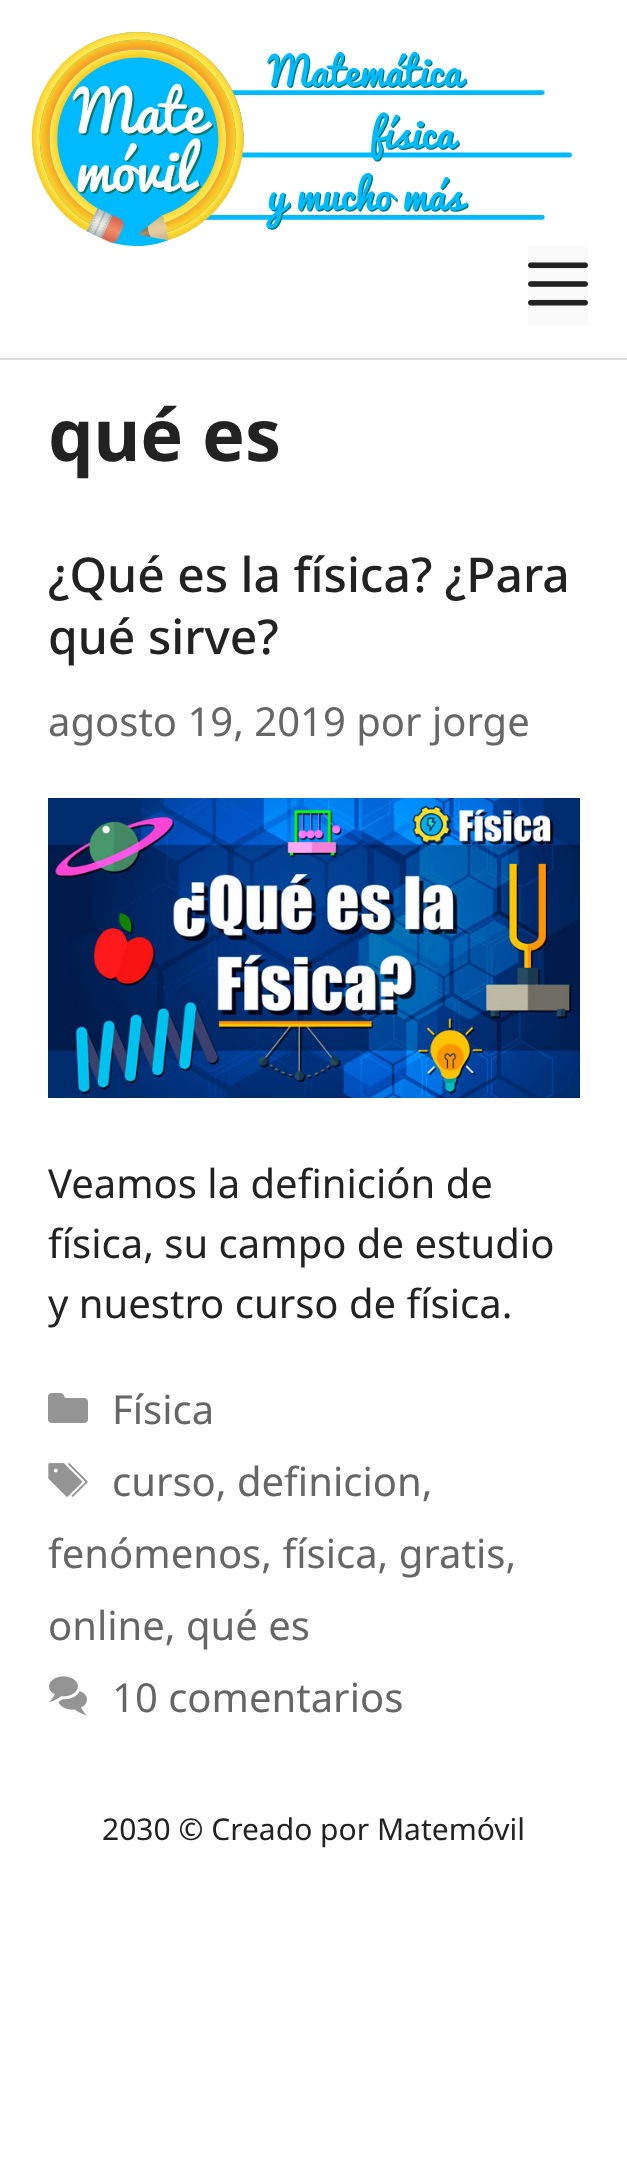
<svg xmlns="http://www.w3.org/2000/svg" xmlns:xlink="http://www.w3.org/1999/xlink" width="627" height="2163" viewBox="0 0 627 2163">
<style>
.cls-1{font:bold 72px Noto Sans;fill:#222222}
.cls-2{font:500 48px Noto Sans;fill:#222222}
.cls-3{font:40px Noto Sans;fill:#666666}
.cls-4{font:40px Noto Sans;fill:#222222}
.cls-5{font:30px Noto Sans;fill:#222222}
</style>
<rect width="100%" height="100%" fill="#ffffff"/>
<rect fill="#dddddd" x="0" y="358" width="627" height="2"/>
<image xlink:href="image0.png" x="32" y="32" width="540" height="214"/>
<rect fill="#fafafa" x="528" y="246" width="60" height="80"/>
<image xlink:href="image1.png" x="528" y="262" width="60" height="44"/>
<image xlink:href="image2.png" x="48" y="798" width="532" height="300"/>
<image xlink:href="image3.png" x="48" y="1393" width="40" height="30"/>
<image xlink:href="image4.png" x="48" y="1463" width="40" height="34"/>
<image xlink:href="image5.png" x="49" y="1676" width="38" height="40"/>
<text class="cls-1" x="48" y="461">qué es</text>
<text class="cls-2"><tspan x="48" y="592">¿Qué es la física? ¿Para</tspan><tspan x="48" y="654">qué sirve?</tspan></text>
<text class="cls-3" x="48" y="736">agosto 19, 2019 por jorge</text>
<text class="cls-4"><tspan x="48" y="1198">Veamos la definición de</tspan><tspan x="48" y="1258">física, su campo de estudio</tspan><tspan x="48" y="1318">y nuestro curso de física.</tspan></text>
<text class="cls-3"><tspan x="112" y="1424">Física</tspan><tspan x="112" y="1496">curso, definicion,</tspan></text>
<text class="cls-3"><tspan x="48" y="1568">fenómenos, física, gratis,</tspan><tspan x="48" y="1640">online, qué es</tspan></text>
<text class="cls-3" x="112" y="1712">10 comentarios</text>
<text class="cls-5" x="102" y="1840">2030 © Creado por Matemóvil</text>
</svg>
